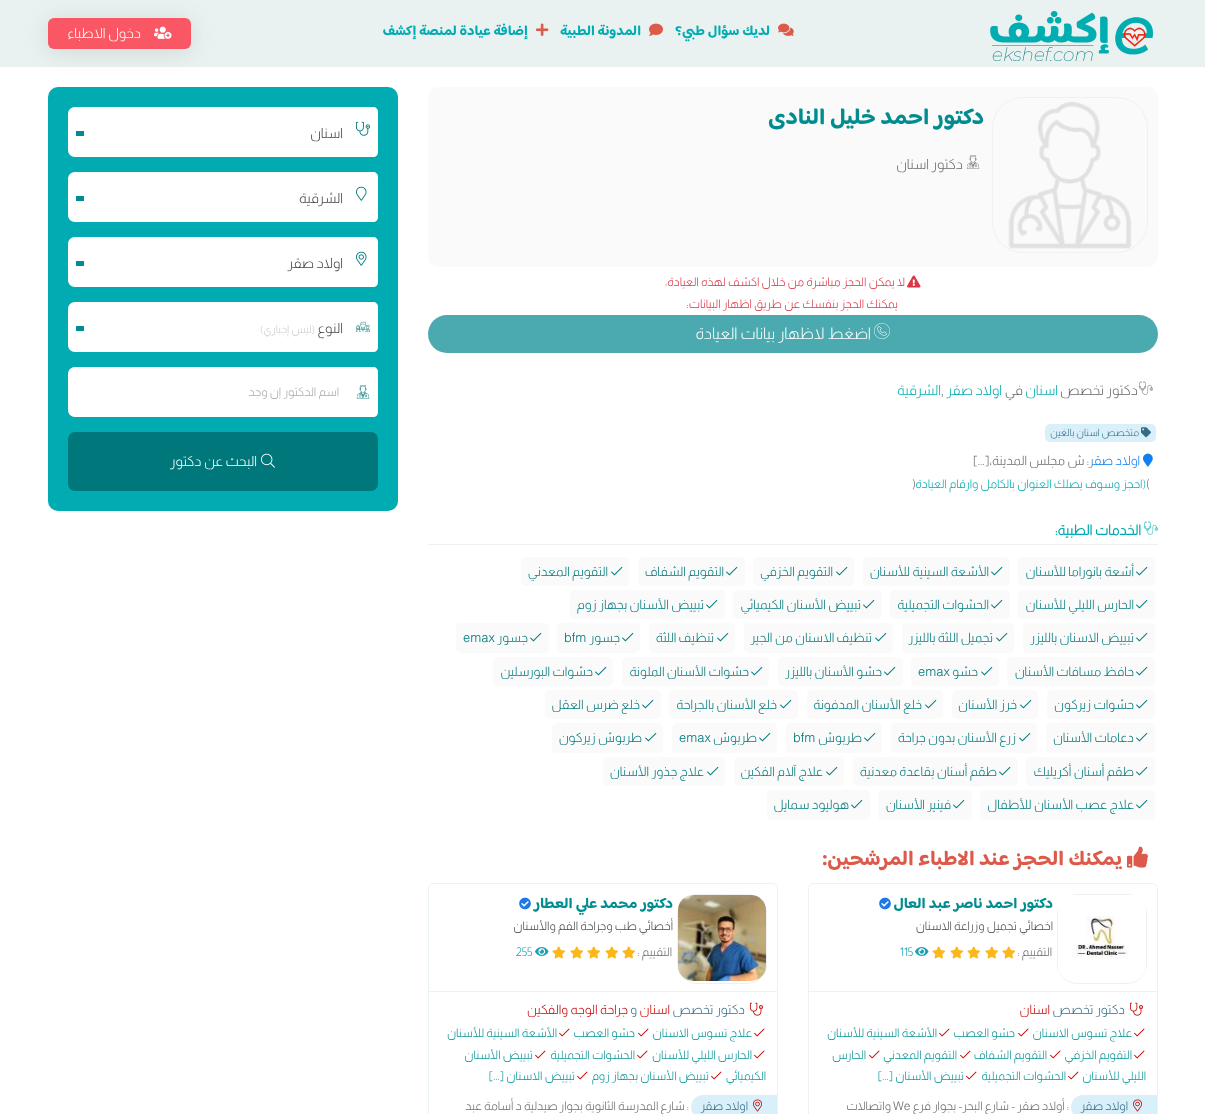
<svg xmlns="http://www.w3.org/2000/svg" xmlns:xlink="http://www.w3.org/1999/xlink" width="1205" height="1114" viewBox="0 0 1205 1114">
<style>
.cls-1{font:bold 14px 'Baloo Bhaijaan 2';direction:rtl;fill:#00acb1}
.cls-2{font:300 14px Almarai;direction:rtl;fill:#ffffff}
.cls-3{font:bold 23px 'Baloo Bhaijaan 2';direction:rtl;fill:#018d90}
.cls-4{font:300 14px Almarai;direction:rtl;fill:#686a6f}
.cls-5{font:300 12px Almarai;direction:rtl;fill:#dc3545}
.cls-6{font:300 16px Almarai;direction:rtl;fill:#ffffff}
.cls-7{font:300 14px Almarai;direction:rtl;fill:#00acb1}
.cls-8{font:300 14px Almarai;fill:#686a6f}
.cls-9{font:300 10px Almarai;direction:rtl;fill:#346d85}
.cls-10{font:300 13px Almarai;direction:rtl;fill:#107ff0}
.cls-11{font:300 13px Almarai;direction:rtl;fill:#686a6f}
.cls-12{font:300 13px Almarai;fill:#686a6f}
.cls-13{font:300 12px Almarai;direction:rtl;fill:#00acb1}
.cls-14{font:bold 14px Almarai;direction:rtl;fill:#00acb1}
.cls-15{font:300 13px Almarai;direction:rtl;fill:#00787b}
.cls-16{font:300 13px Almarai;fill:#00787b}
.cls-17{font:300 14px Almarai;direction:rtl;fill:#444444}
.cls-18{font:300 11px Almarai;direction:rtl;fill:#cccccc}
.cls-19{font:300 12px Almarai;direction:rtl;fill:#aaaaaa}
.cls-20{font:bold 21px 'Baloo Bhaijaan 2';direction:rtl;fill:#dd5a4a}
.cls-21{font:bold 15px 'Baloo Bhaijaan 2';direction:rtl;fill:#018d90}
.cls-22{font:300 12px Almarai;direction:rtl;fill:#4a4a4a}
.cls-23{font:300 12px Almarai;direction:rtl;fill:#686a6f}
.cls-24{font:300 12px Almarai;fill:#17a2b8}
.cls-25{font:300 13px Almarai;direction:rtl;fill:#346d85}
.cls-26{font:300 13px Almarai;direction:rtl;fill:#ca0000}
.cls-27{font:300 12px Almarai;direction:rtl;fill:#0a9398}
.cls-28{font:300 12px Almarai;direction:rtl;fill:#346d85}
.cls-29{font:300 12px Almarai;fill:#686a6f}
</style>
<defs>
<clipPath id="clip1"><rect x="82" y="385" width="257" height="14"/></clipPath>
</defs>
<rect width="100%" height="100%" fill="#ffffff"/>
<rect fill="#eaf1f1" x="0" y="0" width="1205" height="67"/>
<image xlink:href="image0.png" x="990" y="11" width="163" height="50"/>
<image xlink:href="image1.png" x="778" y="23" width="16" height="13"/>
<image xlink:href="image2.png" x="649" y="23" width="14" height="13"/>
<image xlink:href="image3.png" x="536" y="23" width="13" height="13"/>
<rect fill="#00acb1" x="48" y="87" width="350" height="424" rx="10"/>
<rect fill="#000000" fill-opacity="0.1" filter="blur(12px)" x="48" y="21" width="143" height="31" rx="6"/>
<rect fill="#f95763" x="48" y="18" width="143" height="31" rx="6"/>
<image xlink:href="image4.png" x="154" y="26" width="18" height="13"/>
<rect fill="#fafafa" x="428" y="87" width="730" height="180" rx="10"/>
<rect fill="none" stroke="#f0f0f0" x="992.5" y="97.5" width="155" height="155" rx="30.5"/>
<image xlink:href="image5.png" x="1008" y="101" width="124" height="148"/>
<image xlink:href="image6.png" x="966" y="155" width="14" height="14"/>
<image xlink:href="image7.png" x="907" y="275" width="14" height="13"/>
<rect fill="#4baaaf" x="428" y="315" width="730" height="38" rx="19"/>
<image xlink:href="image8.png" x="874" y="323" width="16" height="16"/>
<image xlink:href="image9.png" x="1139" y="381" width="14" height="14"/>
<rect fill="#d9f0fa" x="1045" y="424" width="111" height="18" rx="5"/>
<image xlink:href="image10.png" x="1141" y="427" width="10" height="11"/>
<image xlink:href="image11.png" x="1143" y="453" width="10" height="14"/>
<rect fill="#f0f0f0" x="428" y="544" width="730" height="1"/>
<image xlink:href="image12.png" x="1144" y="521" width="14" height="14"/>
<rect fill="#fafafa" x="1018" y="557" width="137" height="29" rx="5"/>
<image xlink:href="image13.png" x="1136" y="566" width="12" height="10"/>
<rect fill="#fafafa" x="863" y="557" width="147" height="29" rx="5"/>
<image xlink:href="image13.png" x="991" y="566" width="12" height="10"/>
<rect fill="#fafafa" x="753" y="557" width="101" height="29" rx="5"/>
<image xlink:href="image13.png" x="836" y="566" width="12" height="10"/>
<rect fill="#fafafa" x="638" y="557" width="107" height="29" rx="5"/>
<image xlink:href="image13.png" x="726" y="566" width="12" height="10"/>
<rect fill="#fafafa" x="521" y="557" width="108" height="29" rx="5"/>
<image xlink:href="image13.png" x="611" y="566" width="12" height="10"/>
<rect fill="#fafafa" x="1018" y="590" width="137" height="29" rx="5"/>
<image xlink:href="image13.png" x="1136" y="599" width="12" height="10"/>
<rect fill="#fafafa" x="890" y="590" width="120" height="29" rx="5"/>
<image xlink:href="image13.png" x="991" y="599" width="12" height="10"/>
<rect fill="#fafafa" x="733" y="590" width="149" height="29" rx="5"/>
<image xlink:href="image13.png" x="863" y="599" width="12" height="10"/>
<rect fill="#fafafa" x="570" y="590" width="155" height="29" rx="5"/>
<image xlink:href="image13.png" x="706" y="599" width="12" height="10"/>
<rect fill="#fafafa" x="1023" y="623" width="132" height="30" rx="5"/>
<image xlink:href="image13.png" x="1136" y="632" width="12" height="10"/>
<rect fill="#fafafa" x="902" y="623" width="112" height="30" rx="5"/>
<image xlink:href="image13.png" x="996" y="632" width="12" height="10"/>
<rect fill="#fafafa" x="744" y="623" width="149" height="30" rx="5"/>
<image xlink:href="image13.png" x="875" y="632" width="12" height="10"/>
<rect fill="#fafafa" x="649" y="623" width="86" height="30" rx="5"/>
<image xlink:href="image13.png" x="717" y="632" width="12" height="10"/>
<rect fill="#fafafa" x="557" y="623" width="83" height="30" rx="5"/>
<image xlink:href="image13.png" x="622" y="632" width="12" height="10"/>
<rect fill="#fafafa" x="456" y="623" width="93" height="30" rx="5"/>
<image xlink:href="image13.png" x="530" y="632" width="12" height="10"/>
<rect fill="#fafafa" x="1007" y="657" width="148" height="29" rx="5"/>
<image xlink:href="image13.png" x="1136" y="666" width="12" height="10"/>
<rect fill="#fafafa" x="911" y="657" width="88" height="29" rx="5"/>
<image xlink:href="image13.png" x="981" y="666" width="12" height="10"/>
<rect fill="#fafafa" x="778" y="657" width="125" height="29" rx="5"/>
<image xlink:href="image13.png" x="884" y="666" width="12" height="10"/>
<rect fill="#fafafa" x="622" y="657" width="147" height="29" rx="5"/>
<image xlink:href="image13.png" x="751" y="666" width="12" height="10"/>
<rect fill="#fafafa" x="493" y="657" width="120" height="29" rx="5"/>
<image xlink:href="image13.png" x="595" y="666" width="12" height="10"/>
<rect fill="#fafafa" x="1047" y="690" width="108" height="29" rx="5"/>
<image xlink:href="image13.png" x="1136" y="699" width="12" height="10"/>
<rect fill="#fafafa" x="952" y="690" width="86" height="29" rx="5"/>
<image xlink:href="image13.png" x="1020" y="699" width="12" height="10"/>
<rect fill="#fafafa" x="807" y="690" width="136" height="29" rx="5"/>
<image xlink:href="image13.png" x="925" y="699" width="12" height="10"/>
<rect fill="#fafafa" x="669" y="690" width="129" height="29" rx="5"/>
<image xlink:href="image13.png" x="780" y="699" width="12" height="10"/>
<rect fill="#fafafa" x="545" y="690" width="116" height="29" rx="5"/>
<image xlink:href="image13.png" x="642" y="699" width="12" height="10"/>
<rect fill="#fafafa" x="1046" y="723" width="109" height="30" rx="5"/>
<image xlink:href="image13.png" x="1136" y="732" width="12" height="10"/>
<rect fill="#fafafa" x="891" y="723" width="146" height="30" rx="5"/>
<image xlink:href="image13.png" x="1019" y="732" width="12" height="10"/>
<rect fill="#fafafa" x="786" y="723" width="96" height="30" rx="5"/>
<image xlink:href="image13.png" x="864" y="732" width="12" height="10"/>
<rect fill="#fafafa" x="672" y="723" width="105" height="30" rx="5"/>
<image xlink:href="image13.png" x="759" y="732" width="12" height="10"/>
<rect fill="#fafafa" x="552" y="723" width="111" height="30" rx="5"/>
<image xlink:href="image13.png" x="645" y="732" width="12" height="10"/>
<rect fill="#fafafa" x="1026" y="757" width="129" height="29" rx="5"/>
<image xlink:href="image13.png" x="1136" y="766" width="12" height="10"/>
<rect fill="#fafafa" x="853" y="757" width="165" height="29" rx="5"/>
<image xlink:href="image13.png" x="999" y="766" width="12" height="10"/>
<rect fill="#fafafa" x="734" y="757" width="110" height="29" rx="5"/>
<image xlink:href="image13.png" x="826" y="766" width="12" height="10"/>
<rect fill="#fafafa" x="603" y="757" width="122" height="29" rx="5"/>
<image xlink:href="image13.png" x="707" y="766" width="12" height="10"/>
<rect fill="#fafafa" x="980" y="790" width="175" height="30" rx="5"/>
<image xlink:href="image13.png" x="1136" y="799" width="12" height="10"/>
<rect fill="#fafafa" x="878" y="790" width="94" height="30" rx="5"/>
<image xlink:href="image13.png" x="953" y="799" width="12" height="10"/>
<rect fill="#fafafa" x="767" y="790" width="103" height="30" rx="5"/>
<image xlink:href="image13.png" x="851" y="799" width="12" height="10"/>
<path fill="#ffffff" d="M353 107H373C376 107 378 109 378 112V152C378 155 376 157 373 157H353Z"/>
<image xlink:href="image14.png" x="356" y="121" width="14" height="15"/>
<path fill="#ffffff" d="M75 107H353V157H75C71 157 68 154 68 150V114C68 110 71 107 75 107Z"/>
<rect fill="#018d90" x="76" y="131" width="8" height="5"/>
<path fill="#ffffff" d="M353 172H373C376 172 378 174 378 177V217C378 220 376 222 373 222H353Z"/>
<image xlink:href="image15.png" x="356" y="186" width="11" height="15"/>
<path fill="#ffffff" d="M75 172H353V222H75C71 222 68 219 68 215V179C68 175 71 172 75 172Z"/>
<rect fill="#018d90" x="76" y="196" width="8" height="5"/>
<path fill="#ffffff" d="M353 237H373C376 237 378 239 378 242V282C378 285 376 287 373 287H353Z"/>
<image xlink:href="image16.png" x="356" y="251" width="11" height="15"/>
<path fill="#ffffff" d="M75 237H353V287H75C71 287 68 284 68 280V244C68 240 71 237 75 237Z"/>
<rect fill="#018d90" x="76" y="261" width="8" height="5"/>
<path fill="#ffffff" d="M353 302H373C376 302 378 304 378 307V347C378 350 376 352 373 352H353Z"/>
<image xlink:href="image17.png" x="356" y="321" width="14" height="12"/>
<path fill="#ffffff" d="M75 302H353V352H75C71 352 68 349 68 345V309C68 305 71 302 75 302Z"/>
<rect fill="#018d90" x="76" y="326" width="8" height="5"/>
<path fill="#ffffff" d="M353 367H373C376 367 378 369 378 372V412C378 415 376 417 373 417H353Z"/>
<image xlink:href="image18.png" x="356" y="385" width="14" height="14"/>
<path fill="#ffffff" d="M75 367H353V417H75C71 417 68 414 68 410V374C68 370 71 367 75 367Z"/>
<rect fill="#00787b" x="68" y="432" width="310" height="59" rx="7"/>
<image xlink:href="image19.png" x="261" y="453" width="14" height="15"/>
<image xlink:href="image20.png" x="1127" y="846" width="21" height="22"/>
<rect fill="none" stroke="#ebf2f3" x="808.5" y="883.5" width="349" height="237" rx="5.5"/>
<rect fill="#ffffff" x="809" y="884" width="348" height="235" rx="5"/>
<rect fill="#f0f0f0" x="809" y="991" width="348" height="1"/>
<rect fill="none" stroke="#f0f0f0" x="1057.5" y="894.5" width="89" height="89" rx="19.5"/>
<image xlink:href="image21.png" x="1058" y="895" width="88" height="83"/>
<image xlink:href="image22.png" x="879" y="897" width="12" height="13"/>
<image xlink:href="image23.png" x="1002" y="946" width="13" height="13"/>
<image xlink:href="image23.png" x="985" y="946" width="13" height="13"/>
<image xlink:href="image23.png" x="967" y="946" width="13" height="13"/>
<image xlink:href="image23.png" x="950" y="946" width="13" height="13"/>
<image xlink:href="image23.png" x="932" y="946" width="13" height="13"/>
<image xlink:href="image24.png" x="915" y="947" width="14" height="9"/>
<image xlink:href="image25.png" x="1130" y="1002" width="13" height="14"/>
<image xlink:href="image26.png" x="1134" y="1028" width="11" height="9"/>
<image xlink:href="image26.png" x="1018" y="1028" width="11" height="9"/>
<image xlink:href="image26.png" x="939" y="1028" width="11" height="9"/>
<image xlink:href="image26.png" x="1050" y="1050" width="11" height="9"/>
<image xlink:href="image26.png" x="869" y="1050" width="11" height="9"/>
<image xlink:href="image26.png" x="1134" y="1050" width="11" height="9"/>
<image xlink:href="image26.png" x="960" y="1050" width="11" height="9"/>
<image xlink:href="image26.png" x="1068" y="1071" width="11" height="9"/>
<image xlink:href="image26.png" x="966" y="1071" width="11" height="9"/>
<path fill="#d9f0fa" d="M1083 1095H1157V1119H1083C1076.5 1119 1071 1113.5 1071 1107C1071 1100.5 1076.5 1095 1083 1095Z"/>
<image xlink:href="image27.png" x="1133" y="1099" width="9" height="13"/>
<rect fill="none" stroke="#ebf2f3" x="428.5" y="883.5" width="349" height="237" rx="5.5"/>
<rect fill="#ffffff" x="429" y="884" width="348" height="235" rx="5"/>
<rect fill="#f0f0f0" x="429" y="991" width="348" height="1"/>
<rect fill="none" stroke="#f0f0f0" x="677.5" y="894.5" width="89" height="89" rx="19.5"/>
<image xlink:href="image28.png" x="678" y="895" width="88" height="86"/>
<image xlink:href="image22.png" x="519" y="897" width="12" height="13"/>
<image xlink:href="image23.png" x="622" y="946" width="13" height="13"/>
<image xlink:href="image23.png" x="605" y="946" width="13" height="13"/>
<image xlink:href="image23.png" x="587" y="946" width="13" height="13"/>
<image xlink:href="image23.png" x="570" y="946" width="13" height="13"/>
<image xlink:href="image23.png" x="552" y="946" width="13" height="13"/>
<image xlink:href="image24.png" x="535" y="947" width="14" height="9"/>
<image xlink:href="image25.png" x="750" y="1002" width="13" height="14"/>
<image xlink:href="image26.png" x="754" y="1028" width="11" height="9"/>
<image xlink:href="image26.png" x="638" y="1028" width="11" height="9"/>
<image xlink:href="image26.png" x="559" y="1028" width="11" height="9"/>
<image xlink:href="image26.png" x="535" y="1050" width="11" height="9"/>
<image xlink:href="image26.png" x="754" y="1050" width="11" height="9"/>
<image xlink:href="image26.png" x="637" y="1050" width="11" height="9"/>
<image xlink:href="image26.png" x="711" y="1071" width="11" height="9"/>
<image xlink:href="image26.png" x="577" y="1071" width="11" height="9"/>
<path fill="#d9f0fa" d="M703 1095H777V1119H703C696.5 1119 691 1113.5 691 1107C691 1100.5 696.5 1095 703 1095Z"/>
<image xlink:href="image27.png" x="753" y="1099" width="9" height="13"/>
<text class="cls-1" x="770" y="35">لديك سؤال طبي؟</text>
<text class="cls-1" x="641" y="35">المدونة الطبية</text>
<text class="cls-1" x="528" y="35">إضافة عيادة لمنصة إكشف</text>
<text class="cls-2" x="141" y="38">دخول الاطباء</text>
<text class="cls-3" x="984" y="124">دكتور احمد خليل النادى</text>
<text class="cls-4" x="963" y="169">دكتور اسنان</text>
<text class="cls-5" x="905" y="286">لا يمكن الحجز مباشرة من خلال اكشف لهذه العيادة،</text>
<text class="cls-5" x="898" y="308">يمكنك الحجز بنفسك عن طريق اظهار البيانات:</text>
<text class="cls-6" x="871" y="339">اضغط لاظهار بيانات العيادة</text>
<text class="cls-4" x="1138" y="395">دكتور تخصص</text>
<text class="cls-7" x="1058" y="395">اسنان</text>
<text class="cls-4" x="1023" y="395">في</text>
<text class="cls-7" x="1002" y="395">اولاد صقر</text>
<text class="cls-8" x="941" y="395">,</text>
<text class="cls-7" x="941" y="395">الشرقية</text>
<text class="cls-9" x="1139" y="436">متخصص اسنان بالغين</text>
<text class="cls-10" x="1140" y="465">اولاد صقر</text>
<text class="cls-11" x="1089" y="465">: ش مجلس المدينة،[...]</text>
<text class="cls-12" x="1146" y="488">(</text>
<text class="cls-13" x="1146" y="488">(احجز وسوف يصلك العنوان بالكامل وارقام العيادة</text>
<text class="cls-12" x="912" y="488">)</text>
<text class="cls-14" x="1141" y="535">الخدمات الطبية:</text>
<text class="cls-15" x="1134" y="576">أشعة بانوراما للأسنان</text>
<text class="cls-15" x="989" y="576">الأشعة السينية للأسنان</text>
<text class="cls-15" x="833" y="576">التقويم الخزفي</text>
<text class="cls-15" x="724" y="576">التقويم الشفاف</text>
<text class="cls-15" x="608" y="576">التقويم المعدني</text>
<text class="cls-15" x="1134" y="609">الحارس الليلي للأسنان</text>
<text class="cls-15" x="989" y="609">الحشوات التجميلية</text>
<text class="cls-15" x="861" y="609">تبييض الأسنان الكيميائي</text>
<text class="cls-15" x="704" y="609">تبييض الأسنان بجهاز زوم</text>
<text class="cls-15" x="1134" y="642">تبييض الاسنان بالليزر</text>
<text class="cls-15" x="993" y="642">تجميل اللثة بالليزر</text>
<text class="cls-15" x="872" y="642">تنظيف الاسنان من الجير</text>
<text class="cls-15" x="714" y="642">تنظيف اللثة</text>
<text class="cls-15" x="620" y="642">جسور</text>
<text class="cls-16" x="564" y="642">bfm</text>
<text class="cls-15" x="528" y="642">جسور</text>
<text class="cls-16" x="463" y="642">emax</text>
<text class="cls-15" x="1134" y="676">حافظ مسافات الأسنان</text>
<text class="cls-15" x="978" y="676">حشو</text>
<text class="cls-16" x="918" y="676">emax</text>
<text class="cls-15" x="882" y="676">حشو الأسنان بالليزر</text>
<text class="cls-15" x="749" y="676">حشوات الأسنان الملونة</text>
<text class="cls-15" x="593" y="676">حشوات البورسلين</text>
<text class="cls-15" x="1134" y="709">حشوات زيركون</text>
<text class="cls-15" x="1017" y="709">خرز الأسنان</text>
<text class="cls-15" x="922" y="709">خلع الأسنان المدفونة</text>
<text class="cls-15" x="777" y="709">خلع الأسنان بالجراحة</text>
<text class="cls-15" x="640" y="709">خلع ضرس العقل</text>
<text class="cls-15" x="1134" y="742">دعامات الأسنان</text>
<text class="cls-15" x="1016" y="742">زرع الأسنان بدون جراحة</text>
<text class="cls-15" x="862" y="742">طربوش</text>
<text class="cls-16" x="793" y="742">bfm</text>
<text class="cls-15" x="757" y="742">طربوش</text>
<text class="cls-16" x="679" y="742">emax</text>
<text class="cls-15" x="642" y="742">طربوش زيركون</text>
<text class="cls-15" x="1134" y="776">طقم أسنان أكريليك</text>
<text class="cls-15" x="997" y="776">طقم أسنان بقاعدة معدنية</text>
<text class="cls-15" x="823" y="776">علاج آلام الفكين</text>
<text class="cls-15" x="704" y="776">علاج جذور الأسنان</text>
<text class="cls-15" x="1134" y="809">علاج عصب الأسنان للأطفال</text>
<text class="cls-15" x="951" y="809">فينير الأسنان</text>
<text class="cls-15" x="849" y="809">هوليود سمايل</text>
<text class="cls-17" x="343" y="138">اسنان</text>
<text class="cls-17" x="343" y="203">الشرقية</text>
<text class="cls-17" x="343" y="268">اولاد صقر</text>
<text class="cls-17" x="343" y="333">النوع</text>
<text class="cls-18" x="315" y="333">(ليس إجباري)</text>
<g clip-path="url(#clip1)">
<text class="cls-19" x="339" y="396">اسم الدكتور إن وجد</text>
</g>
<text class="cls-2" x="257" y="466">البحث عن دكتور</text>
<text class="cls-20" x="1122" y="865">يمكنك الحجز عند الاطباء المرشحين:</text>
<text class="cls-21" x="1053" y="908">دكتور احمد ناصر عبد العال</text>
<text class="cls-22" x="1053" y="930">اخصائي تجميل وزراعة الاسنان</text>
<text class="cls-23" x="1052" y="956">التقييم :</text>
<text class="cls-24" x="900" y="956">115</text>
<text class="cls-25" x="1125" y="1014">دكتور تخصص</text>
<text class="cls-26" x="1050" y="1014">اسنان</text>
<text class="cls-27" x="1132" y="1037">علاج تسوس الاسنان</text>
<text class="cls-27" x="1015" y="1037">حشو العصب</text>
<text class="cls-27" x="937" y="1037">الأشعة السينية للأسنان</text>
<text class="cls-27" x="1047" y="1059">التقويم الشفاف</text>
<text class="cls-27" x="866" y="1059">الحارس</text>
<text class="cls-27" x="1146" y="1080">الليلي للأسنان</text>
<text class="cls-27" x="1132" y="1059">التقويم الخزفي</text>
<text class="cls-27" x="957" y="1059">التقويم المعدني</text>
<text class="cls-27" x="1066" y="1080">الحشوات التجميلية</text>
<text class="cls-27" x="964" y="1080">تبييض الأسنان [...]</text>
<text class="cls-28" x="1128" y="1110">اولاد صقر</text>
<text class="cls-23" x="1069" y="1110">: أولاد صقر - شارع البحر- بجوار فرع</text>
<text class="cls-29" x="893" y="1110">We</text>
<text class="cls-23" x="891" y="1110">واتصالات</text>
<text class="cls-21" x="673" y="908">دكتور محمد علي العطار</text>
<text class="cls-22" x="673" y="930">أخصائي طب وجراحة الفم والأسنان</text>
<text class="cls-23" x="672" y="956">التقييم :</text>
<text class="cls-24" x="516" y="956">255</text>
<text class="cls-25" x="745" y="1014">دكتور تخصص</text>
<text class="cls-26" x="670" y="1014">اسنان</text>
<text class="cls-25" x="637" y="1014">و</text>
<text class="cls-26" x="628" y="1014">جراحة الوجه والفكين</text>
<text class="cls-27" x="752" y="1037">علاج تسوس الاسنان</text>
<text class="cls-27" x="635" y="1037">حشو العصب</text>
<text class="cls-27" x="557" y="1037">الأشعة السينية للأسنان</text>
<text class="cls-27" x="533" y="1059">تبييض الأسنان</text>
<text class="cls-27" x="766" y="1080">الكيميائي</text>
<text class="cls-27" x="752" y="1059">الحارس الليلي للأسنان</text>
<text class="cls-27" x="635" y="1059">الحشوات التجميلية</text>
<text class="cls-27" x="709" y="1080">تبييض الأسنان بجهاز زوم</text>
<text class="cls-27" x="575" y="1080">تبييض الاسنان [...]</text>
<text class="cls-28" x="748" y="1110">اولاد صقر</text>
<text class="cls-23" x="689" y="1110">: شارع المدرسة الثانوية بجوار صيدلية د أسامة عبد</text>
</svg>
